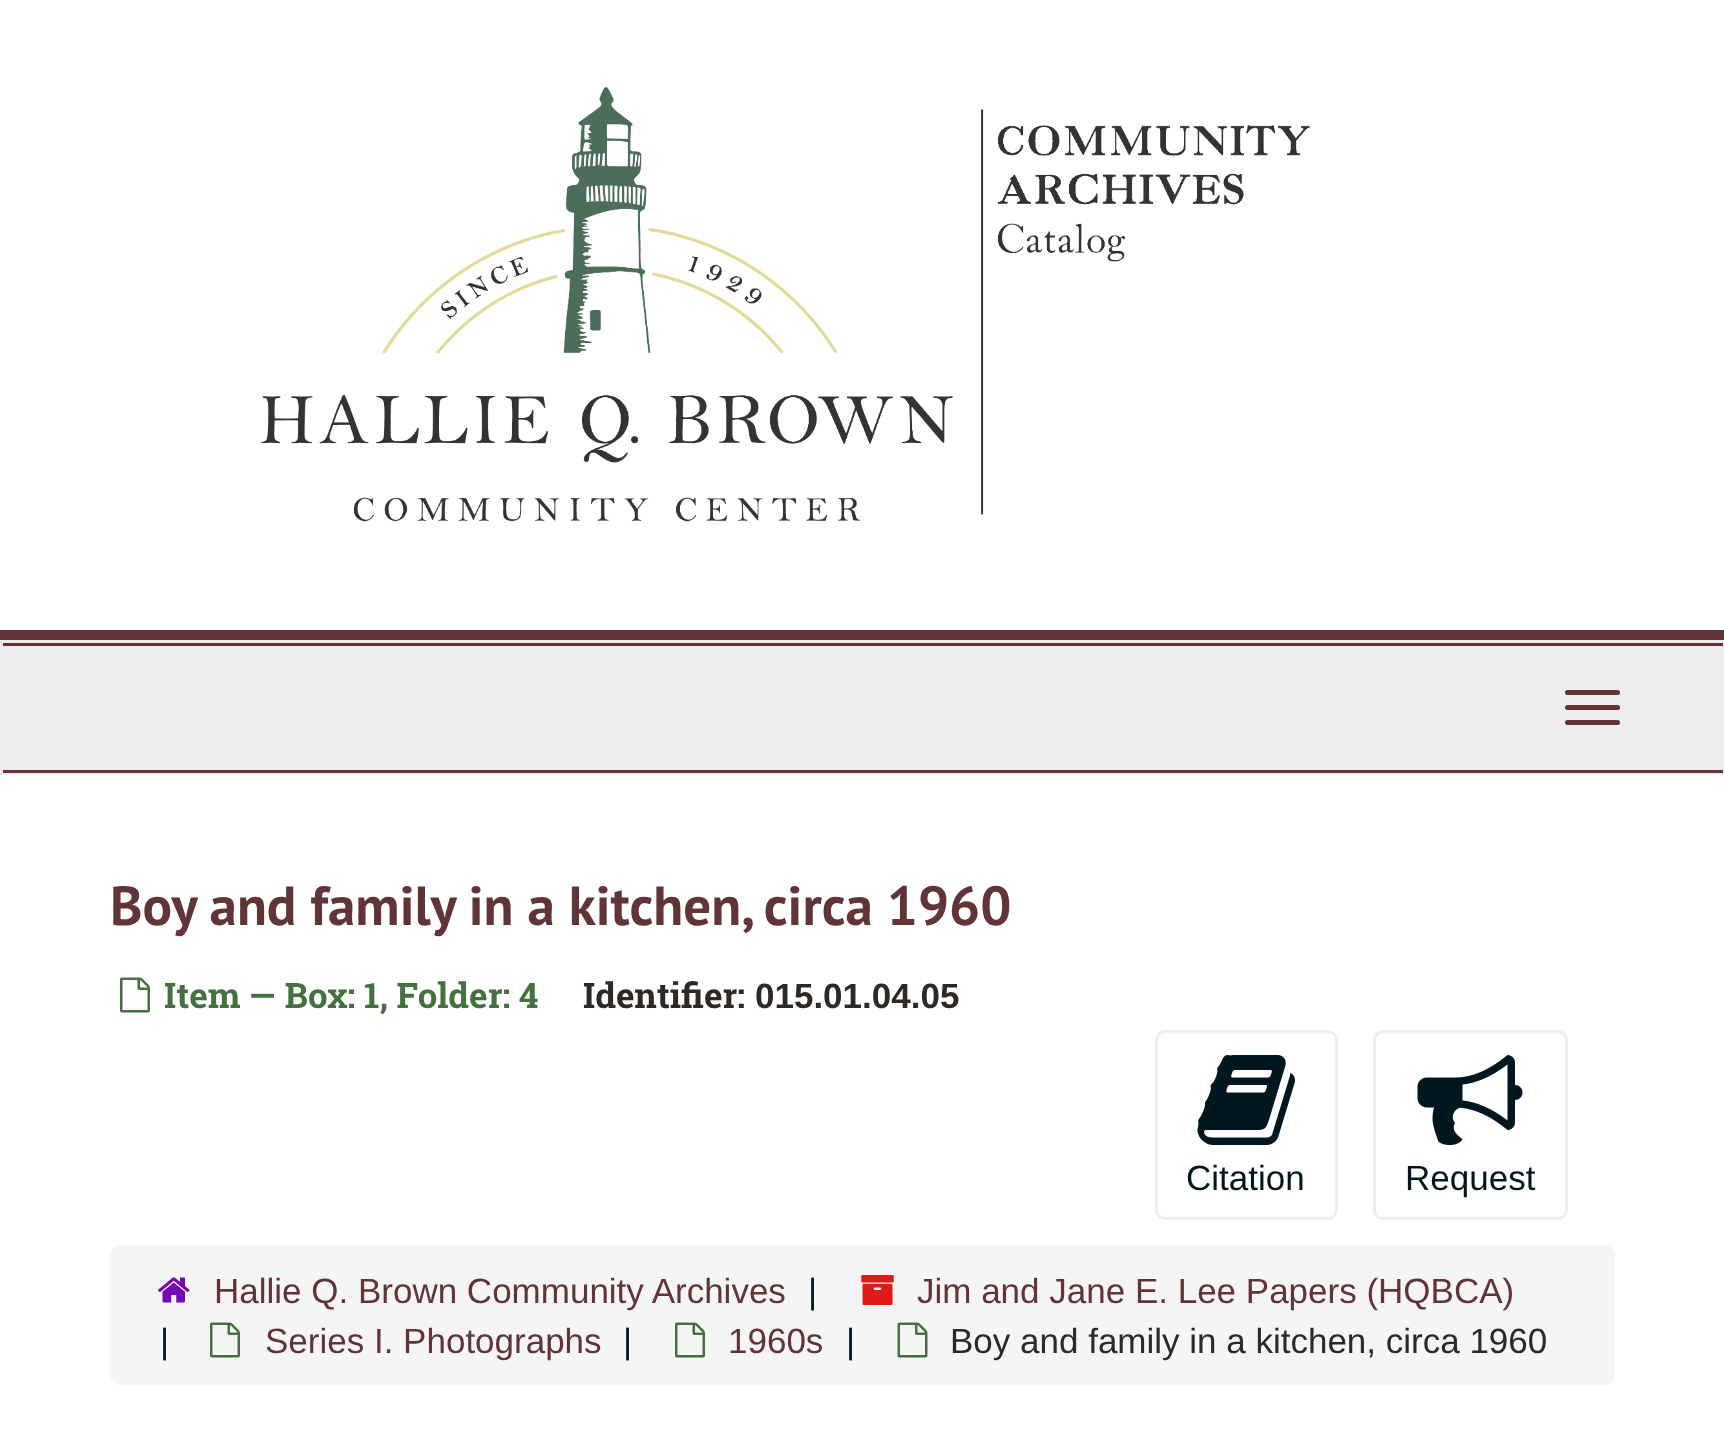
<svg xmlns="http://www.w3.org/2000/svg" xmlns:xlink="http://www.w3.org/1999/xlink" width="1724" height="1453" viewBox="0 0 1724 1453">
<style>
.cls-1{font:bold 55px PT Sans;fill:#613537}
.cls-2{font:bold 35px Roboto Slab;fill:#457141}
.cls-3{font:bold 35px Roboto Slab;fill:#2e2925}
.cls-4{font:bold 35px Liberation Sans;fill:#2e2925}
.cls-5{font:35px Liberation Sans;fill:#00171f}
.cls-6{font:35px Liberation Sans;fill:#613537}
.cls-7{font:35px Liberation Sans;fill:#2e2925}
</style>
<rect width="100%" height="100%" fill="#ffffff"/>
<rect fill="#613537" x="0" y="630" width="1724" height="10"/>
<image xlink:href="image0.png" x="260" y="87" width="1050" height="435"/>
<rect fill="#eeeeee" x="0" y="640" width="1724" height="135"/>
<rect fill="#613537" x="3" y="643" width="1720" height="3"/>
<rect fill="#613537" x="3" y="770" width="1720" height="3"/>
<rect fill="#613537" x="1565" y="690" width="55" height="5" rx="2.5"/>
<rect fill="#613537" x="1565" y="705" width="55" height="5" rx="2.5"/>
<rect fill="#613537" x="1565" y="720" width="55" height="5" rx="2.5"/>
<image xlink:href="image1.png" x="120" y="977" width="30" height="36"/>
<rect fill="none" stroke="#eeeeee" stroke-width="3" x="1156.5" y="1031.5" width="180" height="187" rx="8.5"/>
<image xlink:href="image2.png" x="1197" y="1055" width="98" height="90"/>
<rect fill="none" stroke="#eeeeee" stroke-width="3" x="1374.5" y="1031.5" width="192" height="187" rx="8.5"/>
<image xlink:href="image3.png" x="1417" y="1055" width="106" height="91"/>
<rect fill="#f5f5f5" x="110" y="1245" width="1505" height="140" rx="10"/>
<image xlink:href="image4.png" x="158" y="1277" width="32" height="26"/>
<image xlink:href="image5.png" x="861" y="1275" width="33" height="30"/>
<image xlink:href="image6.png" x="210" y="1322" width="30" height="36"/>
<image xlink:href="image6.png" x="675" y="1322" width="30" height="36"/>
<image xlink:href="image7.png" x="897" y="1322" width="31" height="36"/>
<text class="cls-1" x="110" y="925">Boy and family in a kitchen, circa 1960</text>
<text class="cls-2" x="164" y="1008">Item — Box: 1, Folder: 4</text>
<text class="cls-3" x="583" y="1008">Identifier:</text>
<text class="cls-4" x="755" y="1008">015.01.04.05</text>
<text class="cls-5" x="1186" y="1190">Citation</text>
<text class="cls-5" x="1405" y="1190">Request</text>
<text class="cls-6" x="214" y="1303">Hallie Q. Brown Community Archives</text>
<text class="cls-5" x="808" y="1303">|</text>
<text class="cls-6" x="917" y="1303">Jim and Jane E. Lee Papers (HQBCA)</text>
<text class="cls-5" x="160" y="1353">|</text>
<text class="cls-6" x="265" y="1353">Series I. Photographs</text>
<text class="cls-5" x="623" y="1353">|</text>
<text class="cls-6" x="728" y="1353">1960s</text>
<text class="cls-5" x="846" y="1353">|</text>
<text class="cls-7" x="950" y="1353">Boy and family in a kitchen, circa 1960</text>
</svg>
